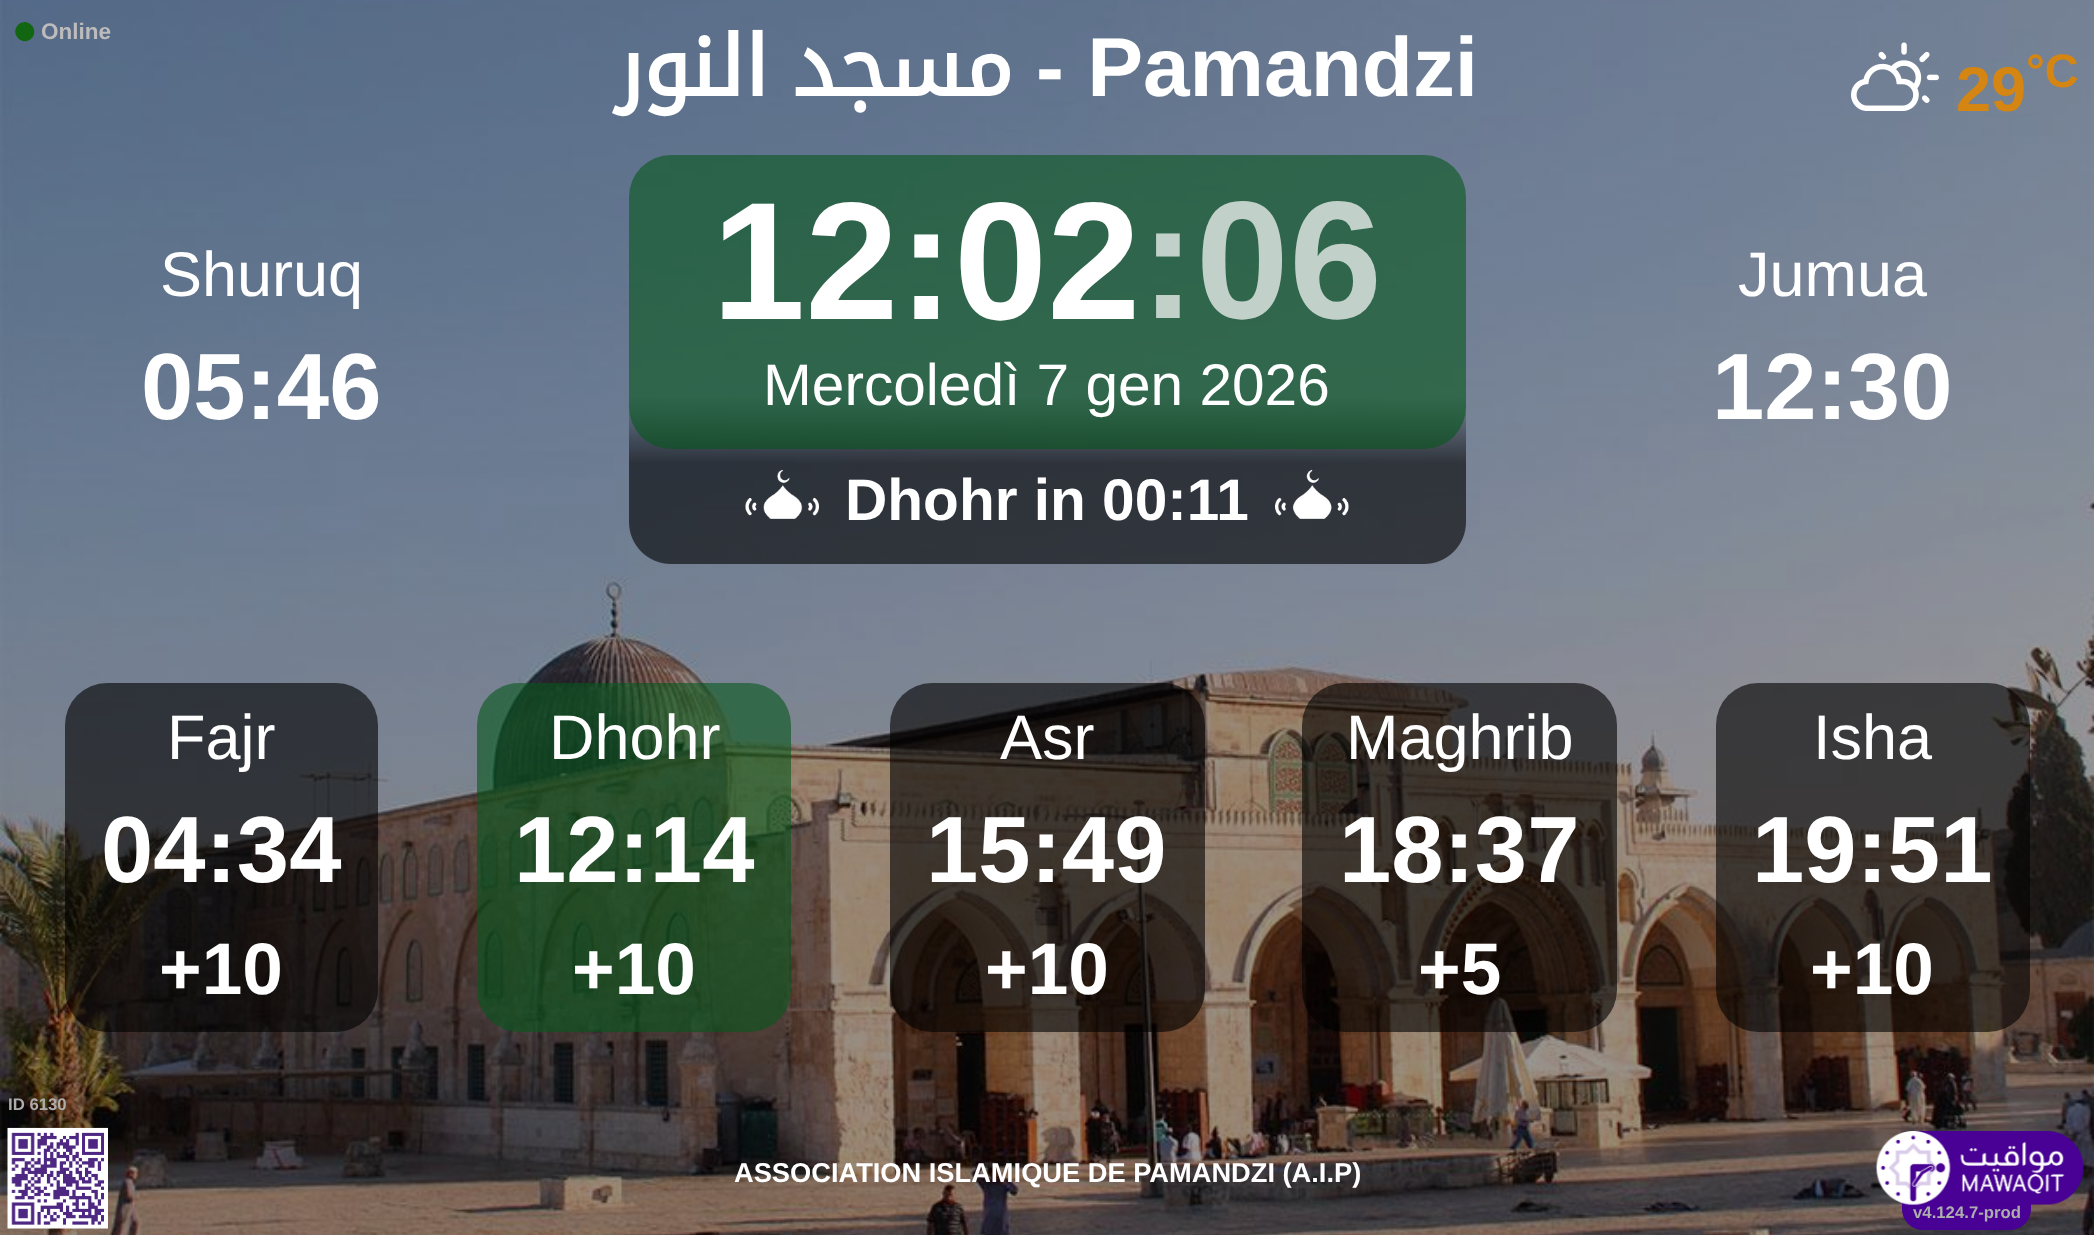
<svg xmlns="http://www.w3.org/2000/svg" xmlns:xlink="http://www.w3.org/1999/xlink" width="2094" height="1235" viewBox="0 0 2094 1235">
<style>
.cls-1{font:bold 22.5px Liberation Sans;fill:#bdbbbb}
.cls-2{font:bold 83.75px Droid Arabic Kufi;direction:rtl;fill:#ffffff}
.cls-3{font:bold 83.75px Liberation Sans;fill:#ffffff}
.cls-4{font:bold 63px Liberation Sans;fill:#d58512}
.cls-5{font:bold 47px Liberation Sans;fill:#d58512}
.cls-6{font:63px Liberation Sans;fill:#ffffff}
.cls-7{font:bold 94px Liberation Sans;fill:#ffffff}
.cls-8{font:bold 167.5px Liberation Sans;fill:#ffffff}
.cls-9{font:bold 167.5px Liberation Sans;fill:#c1d1c9}
.cls-10{font:58.6px Liberation Sans;fill:#ffffff}
.cls-11{font:bold 58.6px Liberation Sans;fill:#ffffff}
.cls-12{font:bold 73px Liberation Sans;fill:#ffffff}
.cls-13{font:bold 16.75px Liberation Sans;fill:#adadad}
.cls-14{font:bold 27.25px Liberation Sans;fill:#ffffff}
</style>
<rect width="100%" height="100%" fill="#ffffff"/>
<image xlink:href="image0.png" x="0" y="0" width="2094" height="1235"/>
<path fill="#126611" d="M18 25C27 16 40 29.5 31.5 38.5C22.5 47 9.5 34 18 25Z"/>
<image xlink:href="image1.png" x="1851" y="42" width="88" height="69"/>
<rect fill="#06571c" fill-opacity="0.6" x="629" y="155" width="837" height="294" rx="42"/>
<image xlink:href="image2.png" x="745" y="469" width="74" height="50"/>
<image xlink:href="image3.png" x="1275" y="469" width="74" height="50"/>
<rect fill="#000000" fill-opacity="0.6" x="65" y="683" width="313" height="349" rx="42"/>
<rect fill="#06571c" fill-opacity="0.6" x="477" y="683" width="314" height="349" rx="42"/>
<rect fill="#000000" fill-opacity="0.6" x="890" y="683" width="315" height="349" rx="42"/>
<rect fill="#000000" fill-opacity="0.6" x="1302" y="683" width="315" height="349" rx="42"/>
<rect fill="#000000" fill-opacity="0.6" x="1716" y="683" width="314" height="349" rx="42"/>
<image xlink:href="image4.png" x="7" y="1127" width="101" height="102"/>
<path fill="#490094" d="M1902 1197H2031V1209C2031 1220.5 2021.5 1230 2010 1230H1923C1911.5 1230 1902 1220.5 1902 1209Z"/>
<image xlink:href="image5.png" x="1876" y="1131" width="209" height="74"/>
<text class="cls-1" x="41" y="39">Online</text>
<text class="cls-2" x="1013" y="96" word-spacing="-5">مسجد النور</text>
<text class="cls-3" x="1036" y="96">- Pamandzi</text>
<text class="cls-4" x="1956" y="111">29</text>
<text class="cls-5" x="2026" y="87">°C</text>
<text class="cls-6" x="160" y="296">Shuruq</text>
<text class="cls-7" x="141" y="419">05:46</text>
<text class="cls-8" x="712" y="319">12:02</text>
<text class="cls-9" x="1140" y="318">:06</text>
<text class="cls-10" x="763" y="405">Mercoledì 7 gen 2026</text>
<text class="cls-11" x="845" y="520">Dhohr in 00:11</text>
<text class="cls-6" x="1738" y="296">Jumua</text>
<text class="cls-7" x="1712" y="419">12:30</text>
<text class="cls-6" x="167" y="759">Fajr</text>
<text class="cls-7" x="101" y="882">04:34</text>
<text class="cls-12" x="159" y="994">+10</text>
<text class="cls-6" x="549" y="759">Dhohr</text>
<text class="cls-7" x="514" y="882">12:14</text>
<text class="cls-12" x="572" y="994">+10</text>
<text class="cls-6" x="1000" y="759">Asr</text>
<text class="cls-7" x="926" y="882">15:49</text>
<text class="cls-12" x="985" y="994">+10</text>
<text class="cls-6" x="1346" y="759">Maghrib</text>
<text class="cls-7" x="1339" y="882">18:37</text>
<text class="cls-12" x="1418" y="994">+5</text>
<text class="cls-6" x="1813" y="759">Isha</text>
<text class="cls-7" x="1752" y="882">19:51</text>
<text class="cls-12" x="1810" y="994">+10</text>
<text class="cls-13" x="8" y="1110">ID 6130</text>
<text class="cls-14" x="734" y="1182">ASSOCIATION ISLAMIQUE DE PAMANDZI (A.I.P)</text>
<text class="cls-13" x="1913" y="1218">v4.124.7-prod</text>
</svg>
